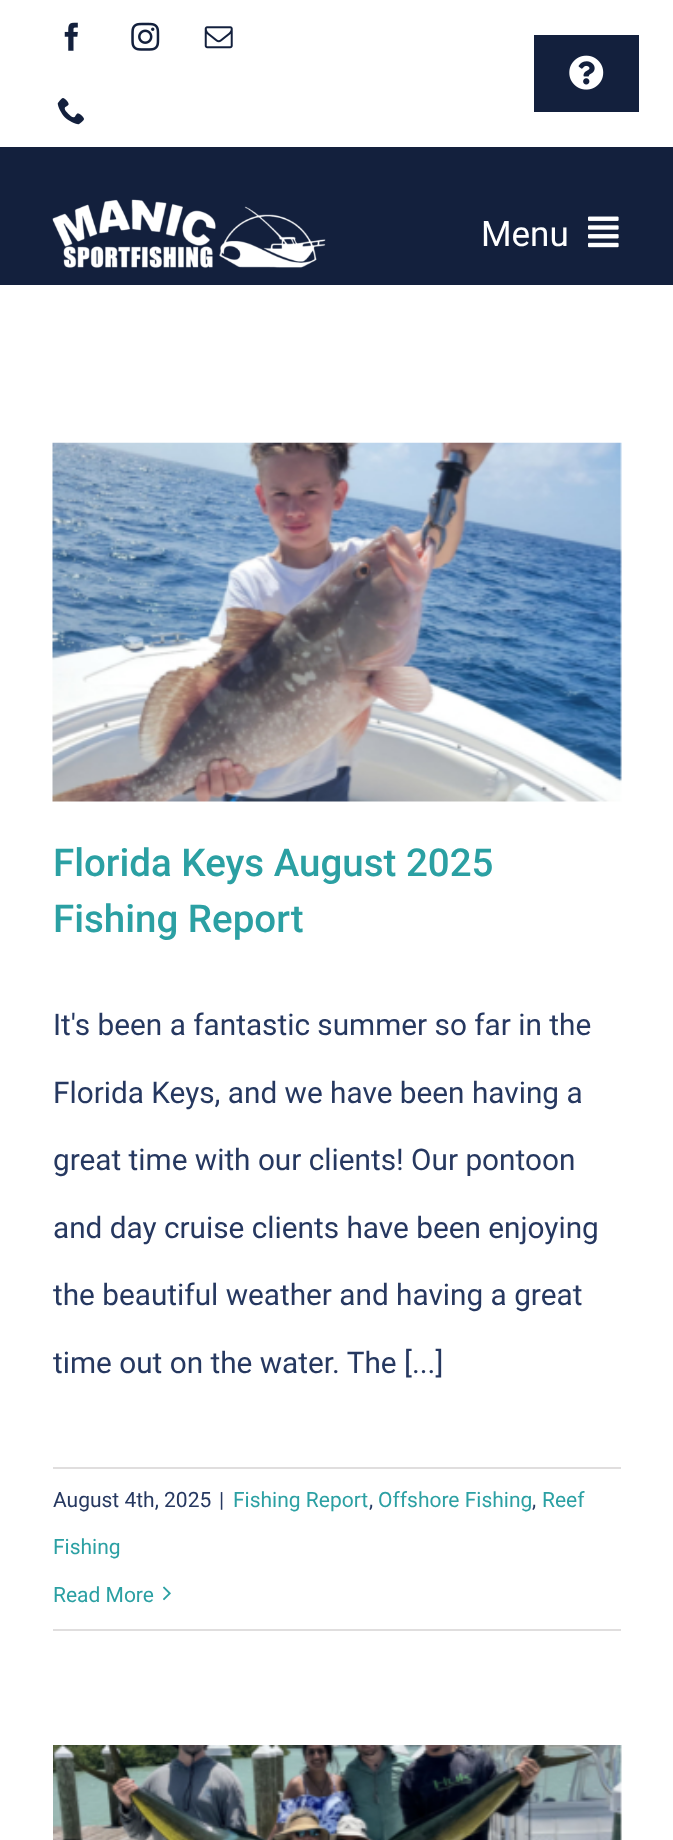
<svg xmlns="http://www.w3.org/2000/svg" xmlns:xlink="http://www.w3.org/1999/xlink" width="673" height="1840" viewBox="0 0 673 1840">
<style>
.cls-1{font:35px Roboto;fill:#ffffff}
.cls-2{font:500 38.5px Roboto;fill:#2ba0a3}
.cls-3{font:29.75px Roboto;fill:#263860}
.cls-4{font:21px Roboto;fill:#263860}
.cls-5{font:21px Roboto;fill:#2ba0a3}
</style>
<rect width="100%" height="100%" fill="#ffffff"/>
<image xlink:href="image0.png" x="64" y="22" width="14" height="29"/>
<image xlink:href="image1.png" x="131" y="22" width="29" height="29"/>
<image xlink:href="image2.png" x="204" y="26" width="29" height="23"/>
<image xlink:href="image3.png" x="57" y="98" width="27" height="27"/>
<rect fill="#13203d" x="534" y="35" width="105" height="77"/>
<image xlink:href="image4.png" x="569" y="55" width="35" height="35"/>
<rect fill="#13203d" x="0" y="147" width="673" height="138"/>
<image xlink:href="image5.png" x="52" y="199" width="274" height="69"/>
<image xlink:href="image6.png" x="588" y="216" width="31" height="32"/>
<image xlink:href="image7.png" x="52" y="442" width="570" height="360"/>
<rect fill="#e0dede" x="53" y="1467" width="568" height="2"/>
<rect fill="#e0dede" x="53" y="1629" width="568" height="2"/>
<image xlink:href="image8.png" x="163" y="1586" width="8" height="15"/>
<image xlink:href="image9.png" x="53" y="1745" width="569" height="95"/>
<text class="cls-1" x="481" y="246">Menu</text>
<text class="cls-2"><tspan x="53" y="876">Florida Keys August 2025</tspan><tspan x="53" y="932">Fishing Report</tspan></text>
<text class="cls-3" x="53" y="1035">It's been a fantastic summer so far in the</text>
<text class="cls-3" x="53" y="1103">Florida Keys, and we have been having a</text>
<text class="cls-3" x="53" y="1170">great time with our clients! Our pontoon</text>
<text class="cls-3" x="53" y="1238">and day cruise clients have been enjoying</text>
<text class="cls-3" x="53" y="1305">the beautiful weather and having a great</text>
<text class="cls-3" x="53" y="1373">time out on the water. The [...]</text>
<text class="cls-4" x="53" y="1507">August 4th, 2025</text>
<text class="cls-4" x="219" y="1507">|</text>
<text class="cls-5" x="233" y="1507">Fishing Report</text>
<text class="cls-4" x="369" y="1507">,</text>
<text class="cls-5" x="378" y="1507">Offshore Fishing</text>
<text class="cls-4" x="532" y="1507">,</text>
<text class="cls-5" x="542" y="1507">Reef</text>
<text class="cls-5" x="53" y="1554">Fishing</text>
<text class="cls-5" x="53" y="1602">Read More</text>
</svg>
